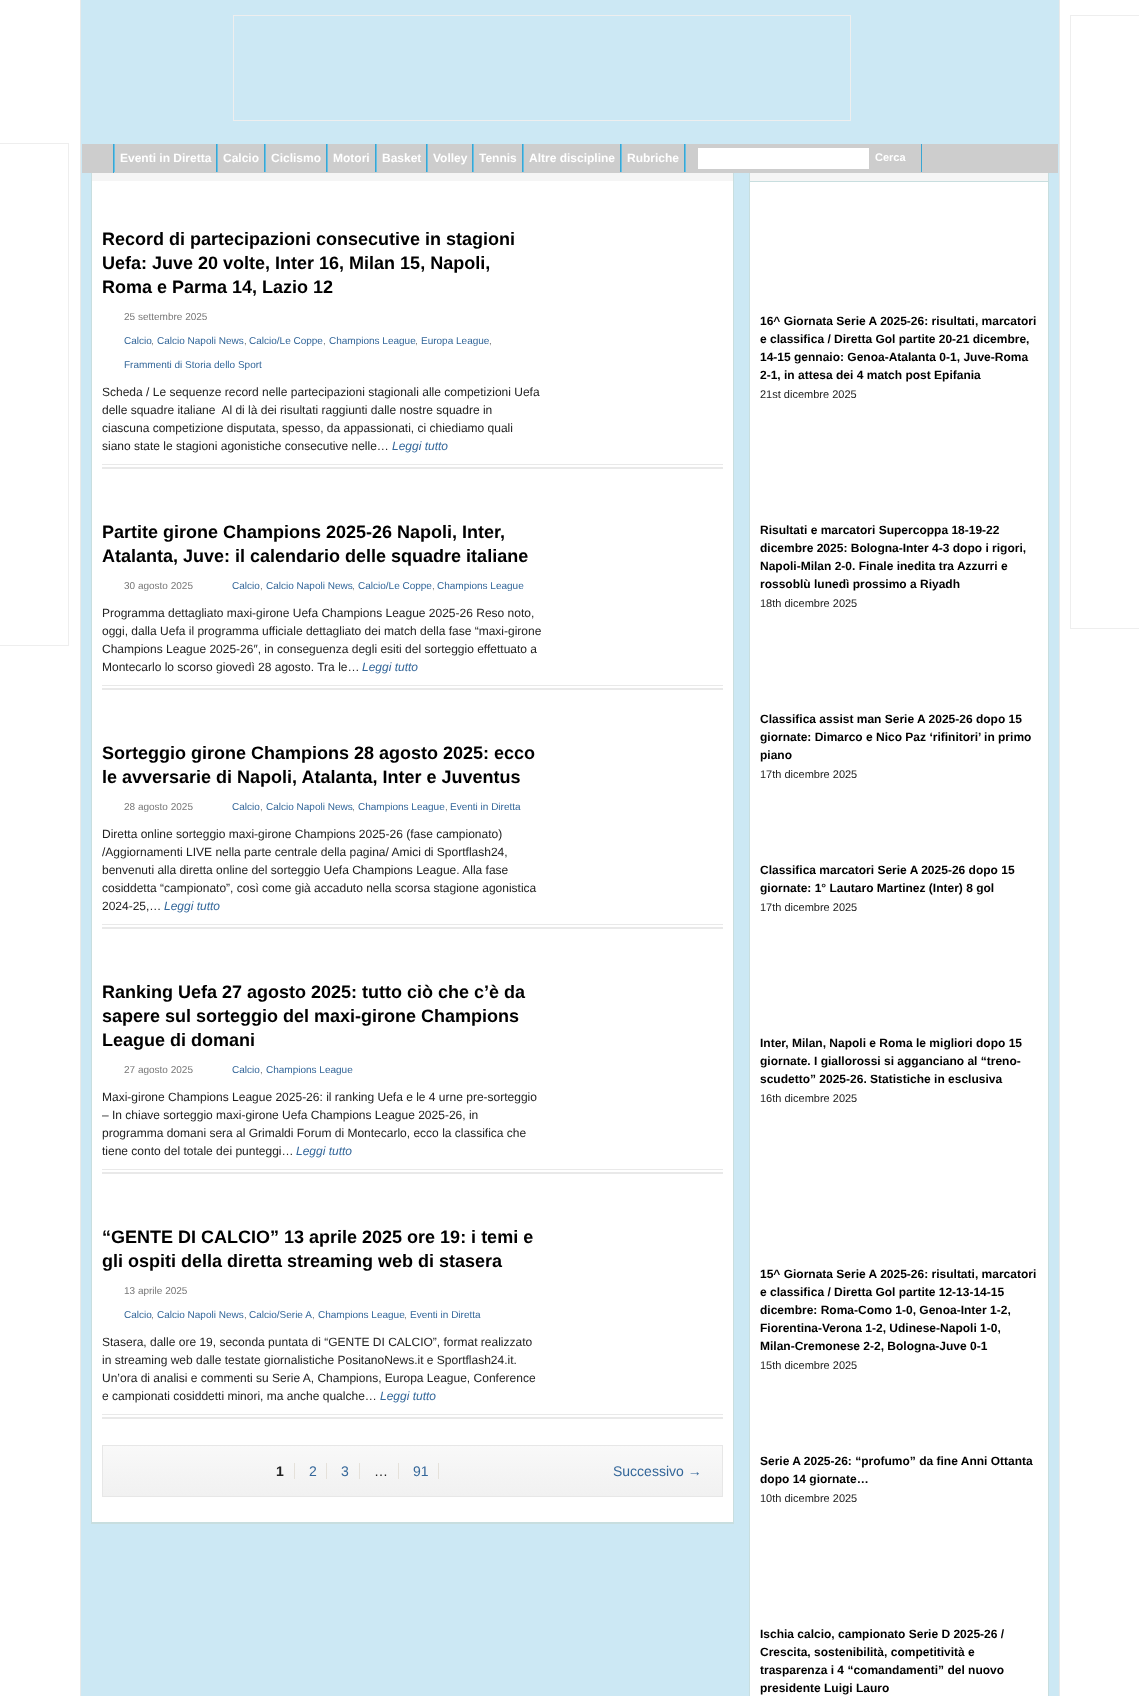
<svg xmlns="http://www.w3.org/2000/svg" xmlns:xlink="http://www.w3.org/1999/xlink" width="1139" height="1696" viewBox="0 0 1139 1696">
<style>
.cls-1{font:bold 12px Liberation Sans;fill:#ffffff}
.cls-2{font:bold 11px Liberation Sans;fill:#ffffff}
.cls-3{font:bold 18px Liberation Sans;fill:#000000}
.cls-4{font:10px Liberation Sans;fill:#777777}
.cls-5{font:10px Liberation Sans;fill:#336699}
.cls-6{font:12px Liberation Sans;fill:#222222}
.cls-7{font:italic 12px Liberation Sans;fill:#336699}
.cls-8{font:bold 14px Liberation Sans;fill:#222222}
.cls-9{font:14px Liberation Sans;fill:#336699}
.cls-10{font:14px Liberation Sans;fill:#222222}
.cls-11{font:bold 12px Liberation Sans;fill:#000000}
.cls-12{font:11px Liberation Sans;fill:#222222}
</style>
<defs>
<linearGradient id="g1" gradientUnits="userSpaceOnUse" x1="413" y1="1446" x2="413" y2="1496"><stop offset="0" stop-color="#f9f9f9"/><stop offset="1" stop-color="#f1f1f1"/></linearGradient>
<clipPath id="clip1"><rect x="102" y="741" width="440" height="180"/></clipPath>
</defs>
<rect width="100%" height="100%" fill="#ffffff"/>
<rect fill="none" stroke="#eeeeee" x="-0.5" y="143.5" width="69" height="502"/>
<rect fill="#cce8f4" stroke="#e9e9e9" x="80.5" y="-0.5" width="979" height="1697"/>
<rect fill="none" stroke="#eeeeee" x="233.5" y="15.5" width="617" height="105"/>
<rect fill="none" stroke="#eeeeee" x="1070.5" y="15.5" width="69" height="613"/>
<rect fill="#cdcdcd" x="82" y="144" width="976" height="29"/>
<rect fill="#39a6d3" x="113" y="144" width="1" height="29"/>
<rect fill="#39a6d3" x="216" y="144" width="1" height="28"/>
<rect fill="#65c0e5" x="114" y="144" width="1" height="28"/>
<rect fill="#39a6d3" x="264" y="144" width="1" height="28"/>
<rect fill="#65c0e5" x="217" y="144" width="1" height="28"/>
<rect fill="#39a6d3" x="326" y="144" width="1" height="28"/>
<rect fill="#65c0e5" x="265" y="144" width="1" height="28"/>
<rect fill="#39a6d3" x="375" y="144" width="1" height="28"/>
<rect fill="#65c0e5" x="327" y="144" width="1" height="28"/>
<rect fill="#39a6d3" x="426" y="144" width="1" height="28"/>
<rect fill="#65c0e5" x="376" y="144" width="1" height="28"/>
<rect fill="#39a6d3" x="472" y="144" width="1" height="28"/>
<rect fill="#65c0e5" x="427" y="144" width="1" height="28"/>
<rect fill="#39a6d3" x="522" y="144" width="1" height="28"/>
<rect fill="#65c0e5" x="473" y="144" width="1" height="28"/>
<rect fill="#39a6d3" x="620" y="144" width="1" height="28"/>
<rect fill="#65c0e5" x="523" y="144" width="1" height="28"/>
<rect fill="#39a6d3" x="684" y="144" width="1" height="28"/>
<rect fill="#65c0e5" x="621" y="144" width="1" height="28"/>
<rect fill="#39a6d3" x="921" y="144" width="1" height="28"/>
<rect fill="#65c0e5" x="685" y="144" width="1" height="28"/>
<rect fill="#ffffff" x="698" y="148" width="171" height="21"/>
<rect fill="#f5f5f5" x="92" y="173" width="641" height="8"/>
<rect fill="#c8dedf" x="733" y="173" width="1" height="1351"/>
<rect fill="#c8dedf" x="91" y="173" width="1" height="8"/>
<rect fill="#ffffff" x="92" y="181" width="641" height="1341"/>
<rect fill="#c8dedf" x="91" y="1522" width="643" height="2"/>
<rect fill="#c8dedf" x="91" y="181" width="1" height="1343"/>
<rect fill="#e9e9e9" x="102" y="464" width="621" height="1"/>
<rect fill="#e9e9e9" x="102" y="467" width="621" height="2"/>
<rect fill="#e9e9e9" x="102" y="685" width="621" height="1"/>
<rect fill="#e9e9e9" x="102" y="688" width="621" height="2"/>
<rect fill="#e9e9e9" x="102" y="924" width="621" height="1"/>
<rect fill="#e9e9e9" x="102" y="927" width="621" height="2"/>
<rect fill="#e9e9e9" x="102" y="1169" width="621" height="1"/>
<rect fill="#e9e9e9" x="102" y="1172" width="621" height="2"/>
<rect fill="#e9e9e9" x="102" y="1414" width="621" height="1"/>
<rect fill="#e9e9e9" x="102" y="1417" width="621" height="2"/>
<rect fill="url(#g1)" x="103" y="1446" width="619" height="50"/>
<rect fill="none" stroke="#e7e7e7" x="102.5" y="1445.5" width="620" height="51"/>
<rect fill="#e5e1da" x="294" y="1463" width="1" height="16"/>
<rect fill="#e5e1da" x="326" y="1463" width="1" height="16"/>
<rect fill="#e5e1da" x="359" y="1463" width="1" height="16"/>
<rect fill="#e5e1da" x="398" y="1463" width="1" height="16"/>
<rect fill="#e5e1da" x="438" y="1463" width="1" height="16"/>
<rect fill="#ffffff" x="750" y="182" width="298" height="1514"/>
<rect fill="#c8dedf" x="1048" y="173" width="1" height="1523"/>
<rect fill="#c8dedf" x="749" y="173" width="1" height="1523"/>
<rect fill="#f5f5f5" x="750" y="173" width="298" height="8"/>
<rect fill="#c8dedf" x="750" y="181" width="298" height="1"/>
<text class="cls-1" x="120" y="162">Eventi in Diretta</text>
<text class="cls-1" x="223" y="162">Calcio</text>
<text class="cls-1" x="271" y="162">Ciclismo</text>
<text class="cls-1" x="333" y="162">Motori</text>
<text class="cls-1" x="382" y="162">Basket</text>
<text class="cls-1" x="433" y="162">Volley</text>
<text class="cls-1" x="479" y="162">Tennis</text>
<text class="cls-1" x="529" y="162">Altre discipline</text>
<text class="cls-1" x="627" y="162">Rubriche</text>
<text class="cls-2" x="875" y="161">Cerca</text>
<text class="cls-3"><tspan x="102" y="245">Record di partecipazioni consecutive in stagioni</tspan><tspan x="102" y="269">Uefa: Juve 20 volte, Inter 16, Milan 15, Napoli,</tspan><tspan x="102" y="293">Roma e Parma 14, Lazio 12</tspan></text>
<text class="cls-4" x="124" y="320">25 settembre 2025</text>
<text class="cls-5" x="124" y="344">Calcio</text>
<text class="cls-4" x="151" y="344">,</text>
<text class="cls-5" x="157" y="344">Calcio Napoli News</text>
<text class="cls-4" x="244" y="344">,</text>
<text class="cls-5" x="249" y="344">Calcio/Le Coppe</text>
<text class="cls-4" x="323" y="344">,</text>
<text class="cls-5" x="329" y="344">Champions League</text>
<text class="cls-4" x="415" y="344">,</text>
<text class="cls-5" x="421" y="344">Europa League</text>
<text class="cls-4" x="489" y="344">,</text>
<text class="cls-5" x="124" y="368">Frammenti di Storia dello Sport</text>
<text class="cls-6" xml:space="preserve"><tspan x="102" y="396">Scheda / Le sequenze record nelle partecipazioni stagionali alle competizioni Uefa</tspan><tspan x="102" y="414">delle squadre italiane  Al di là dei risultati raggiunti dalle nostre squadre in</tspan><tspan x="102" y="432">ciascuna competizione disputata, spesso, da appassionati, ci chiediamo quali</tspan><tspan x="102" y="450">siano state le stagioni agonistiche consecutive nelle…</tspan></text>
<text class="cls-7" x="392" y="450">Leggi tutto</text>
<text class="cls-3"><tspan x="102" y="538">Partite girone Champions 2025-26 Napoli, Inter,</tspan><tspan x="102" y="562">Atalanta, Juve: il calendario delle squadre italiane</tspan></text>
<text class="cls-4" x="124" y="589">30 agosto 2025</text>
<text class="cls-5" x="232" y="589">Calcio</text>
<text class="cls-4" x="260" y="589">,</text>
<text class="cls-5" x="266" y="589">Calcio Napoli News</text>
<text class="cls-4" x="352" y="589">,</text>
<text class="cls-5" x="358" y="589">Calcio/Le Coppe</text>
<text class="cls-4" x="432" y="589">,</text>
<text class="cls-5" x="437" y="589">Champions League</text>
<text class="cls-6"><tspan x="102" y="617">Programma dettagliato maxi-girone Uefa Champions League 2025-26 Reso noto,</tspan><tspan x="102" y="635">oggi, dalla Uefa il programma ufficiale dettagliato dei match della fase “maxi-girone</tspan><tspan x="102" y="653">Champions League 2025-26″, in conseguenza degli esiti del sorteggio effettuato a</tspan><tspan x="102" y="671">Montecarlo lo scorso giovedì 28 agosto. Tra le…</tspan></text>
<text class="cls-7" x="362" y="671">Leggi tutto</text>
<text class="cls-3"><tspan x="102" y="759">Sorteggio girone Champions 28 agosto 2025: ecco</tspan><tspan x="102" y="783">le avversarie di Napoli, Atalanta, Inter e Juventus</tspan></text>
<text class="cls-4" x="124" y="810">28 agosto 2025</text>
<text class="cls-5" x="232" y="810">Calcio</text>
<text class="cls-4" x="260" y="810">,</text>
<text class="cls-5" x="266" y="810">Calcio Napoli News</text>
<text class="cls-4" x="352" y="810">,</text>
<text class="cls-5" x="358" y="810">Champions League</text>
<text class="cls-4" x="445" y="810">,</text>
<text class="cls-5" x="450" y="810">Eventi in Diretta</text>
<text class="cls-6" x="102" y="838">Diretta online sorteggio maxi-girone Champions 2025-26 (fase campionato)</text>
<g clip-path="url(#clip1)">
<text class="cls-6" x="102" y="856">/Aggiornamenti LIVE nella parte centrale della pagina/ Amici di Sportflash24,</text>
</g>
<text class="cls-6"><tspan x="102" y="874">benvenuti alla diretta online del sorteggio Uefa Champions League. Alla fase</tspan><tspan x="102" y="892">cosiddetta “campionato”, così come già accaduto nella scorsa stagione agonistica</tspan><tspan x="102" y="910">2024-25,…</tspan></text>
<text class="cls-7" x="164" y="910">Leggi tutto</text>
<text class="cls-3"><tspan x="102" y="998">Ranking Uefa 27 agosto 2025: tutto ciò che c’è da</tspan><tspan x="102" y="1022">sapere sul sorteggio del maxi-girone Champions</tspan><tspan x="102" y="1046">League di domani</tspan></text>
<text class="cls-4" x="124" y="1073">27 agosto 2025</text>
<text class="cls-5" x="232" y="1073">Calcio</text>
<text class="cls-4" x="260" y="1073">,</text>
<text class="cls-5" x="266" y="1073">Champions League</text>
<text class="cls-6"><tspan x="102" y="1101">Maxi-girone Champions League 2025-26: il ranking Uefa e le 4 urne pre-sorteggio</tspan><tspan x="102" y="1119">– In chiave sorteggio maxi-girone Uefa Champions League 2025-26, in</tspan><tspan x="102" y="1137">programma domani sera al Grimaldi Forum di Montecarlo, ecco la classifica che</tspan><tspan x="102" y="1155">tiene conto del totale dei punteggi…</tspan></text>
<text class="cls-7" x="296" y="1155">Leggi tutto</text>
<text class="cls-3"><tspan x="102" y="1243">“GENTE DI CALCIO” 13 aprile 2025 ore 19: i temi e</tspan><tspan x="102" y="1267">gli ospiti della diretta streaming web di stasera</tspan></text>
<text class="cls-4" x="124" y="1294">13 aprile 2025</text>
<text class="cls-5" x="124" y="1318">Calcio</text>
<text class="cls-4" x="151" y="1318">,</text>
<text class="cls-5" x="157" y="1318">Calcio Napoli News</text>
<text class="cls-4" x="244" y="1318">,</text>
<text class="cls-5" x="249" y="1318">Calcio/Serie A</text>
<text class="cls-4" x="312" y="1318">,</text>
<text class="cls-5" x="318" y="1318">Champions League</text>
<text class="cls-4" x="404" y="1318">,</text>
<text class="cls-5" x="410" y="1318">Eventi in Diretta</text>
<text class="cls-6"><tspan x="102" y="1346">Stasera, dalle ore 19, seconda puntata di “GENTE DI CALCIO”, format realizzato</tspan><tspan x="102" y="1364">in streaming web dalle testate giornalistiche PositanoNews.it e Sportflash24.it.</tspan><tspan x="102" y="1382">Un’ora di analisi e commenti su Serie A, Champions, Europa League, Conference</tspan><tspan x="102" y="1400">e campionati cosiddetti minori, ma anche qualche…</tspan></text>
<text class="cls-7" x="380" y="1400">Leggi tutto</text>
<text class="cls-8" x="276" y="1476">1</text>
<text class="cls-9" x="309" y="1476">2</text>
<text class="cls-9" x="341" y="1476">3</text>
<text class="cls-10" x="374" y="1476">…</text>
<text class="cls-9" x="413" y="1476">91</text>
<text class="cls-9" x="613" y="1476">Successivo →</text>
<text class="cls-11"><tspan x="760" y="325">16^ Giornata Serie A 2025-26: risultati, marcatori</tspan><tspan x="760" y="343">e classifica / Diretta Gol partite 20-21 dicembre,</tspan><tspan x="760" y="361">14-15 gennaio: Genoa-Atalanta 0-1, Juve-Roma</tspan><tspan x="760" y="379">2-1, in attesa dei 4 match post Epifania</tspan></text>
<text class="cls-12" x="760" y="398">21st dicembre 2025</text>
<text class="cls-11"><tspan x="760" y="534">Risultati e marcatori Supercoppa 18-19-22</tspan><tspan x="760" y="552">dicembre 2025: Bologna-Inter 4-3 dopo i rigori,</tspan><tspan x="760" y="570">Napoli-Milan 2-0. Finale inedita tra Azzurri e</tspan><tspan x="760" y="588">rossoblù lunedì prossimo a Riyadh</tspan></text>
<text class="cls-12" x="760" y="607">18th dicembre 2025</text>
<text class="cls-11"><tspan x="760" y="723">Classifica assist man Serie A 2025-26 dopo 15</tspan><tspan x="760" y="741">giornate: Dimarco e Nico Paz ‘rifinitori’ in primo</tspan><tspan x="760" y="759">piano</tspan></text>
<text class="cls-12" x="760" y="778">17th dicembre 2025</text>
<text class="cls-11"><tspan x="760" y="874">Classifica marcatori Serie A 2025-26 dopo 15</tspan><tspan x="760" y="892">giornate: 1° Lautaro Martinez (Inter) 8 gol</tspan></text>
<text class="cls-12" x="760" y="911">17th dicembre 2025</text>
<text class="cls-11"><tspan x="760" y="1047">Inter, Milan, Napoli e Roma le migliori dopo 15</tspan><tspan x="760" y="1065">giornate. I giallorossi si agganciano al “treno-</tspan><tspan x="760" y="1083">scudetto” 2025-26. Statistiche in esclusiva</tspan></text>
<text class="cls-12" x="760" y="1102">16th dicembre 2025</text>
<text class="cls-11"><tspan x="760" y="1278">15^ Giornata Serie A 2025-26: risultati, marcatori</tspan><tspan x="760" y="1296">e classifica / Diretta Gol partite 12-13-14-15</tspan><tspan x="760" y="1314">dicembre: Roma-Como 1-0, Genoa-Inter 1-2,</tspan><tspan x="760" y="1332">Fiorentina-Verona 1-2, Udinese-Napoli 1-0,</tspan><tspan x="760" y="1350">Milan-Cremonese 2-2, Bologna-Juve 0-1</tspan></text>
<text class="cls-12" x="760" y="1369">15th dicembre 2025</text>
<text class="cls-11"><tspan x="760" y="1465">Serie A 2025-26: “profumo” da fine Anni Ottanta</tspan><tspan x="760" y="1483">dopo 14 giornate…</tspan></text>
<text class="cls-12" x="760" y="1502">10th dicembre 2025</text>
<text class="cls-11"><tspan x="760" y="1638">Ischia calcio, campionato Serie D 2025-26 /</tspan><tspan x="760" y="1656">Crescita, sostenibilità, competitività e</tspan><tspan x="760" y="1674">trasparenza i 4 “comandamenti” del nuovo</tspan><tspan x="760" y="1692">presidente Luigi Lauro</tspan></text>
</svg>
